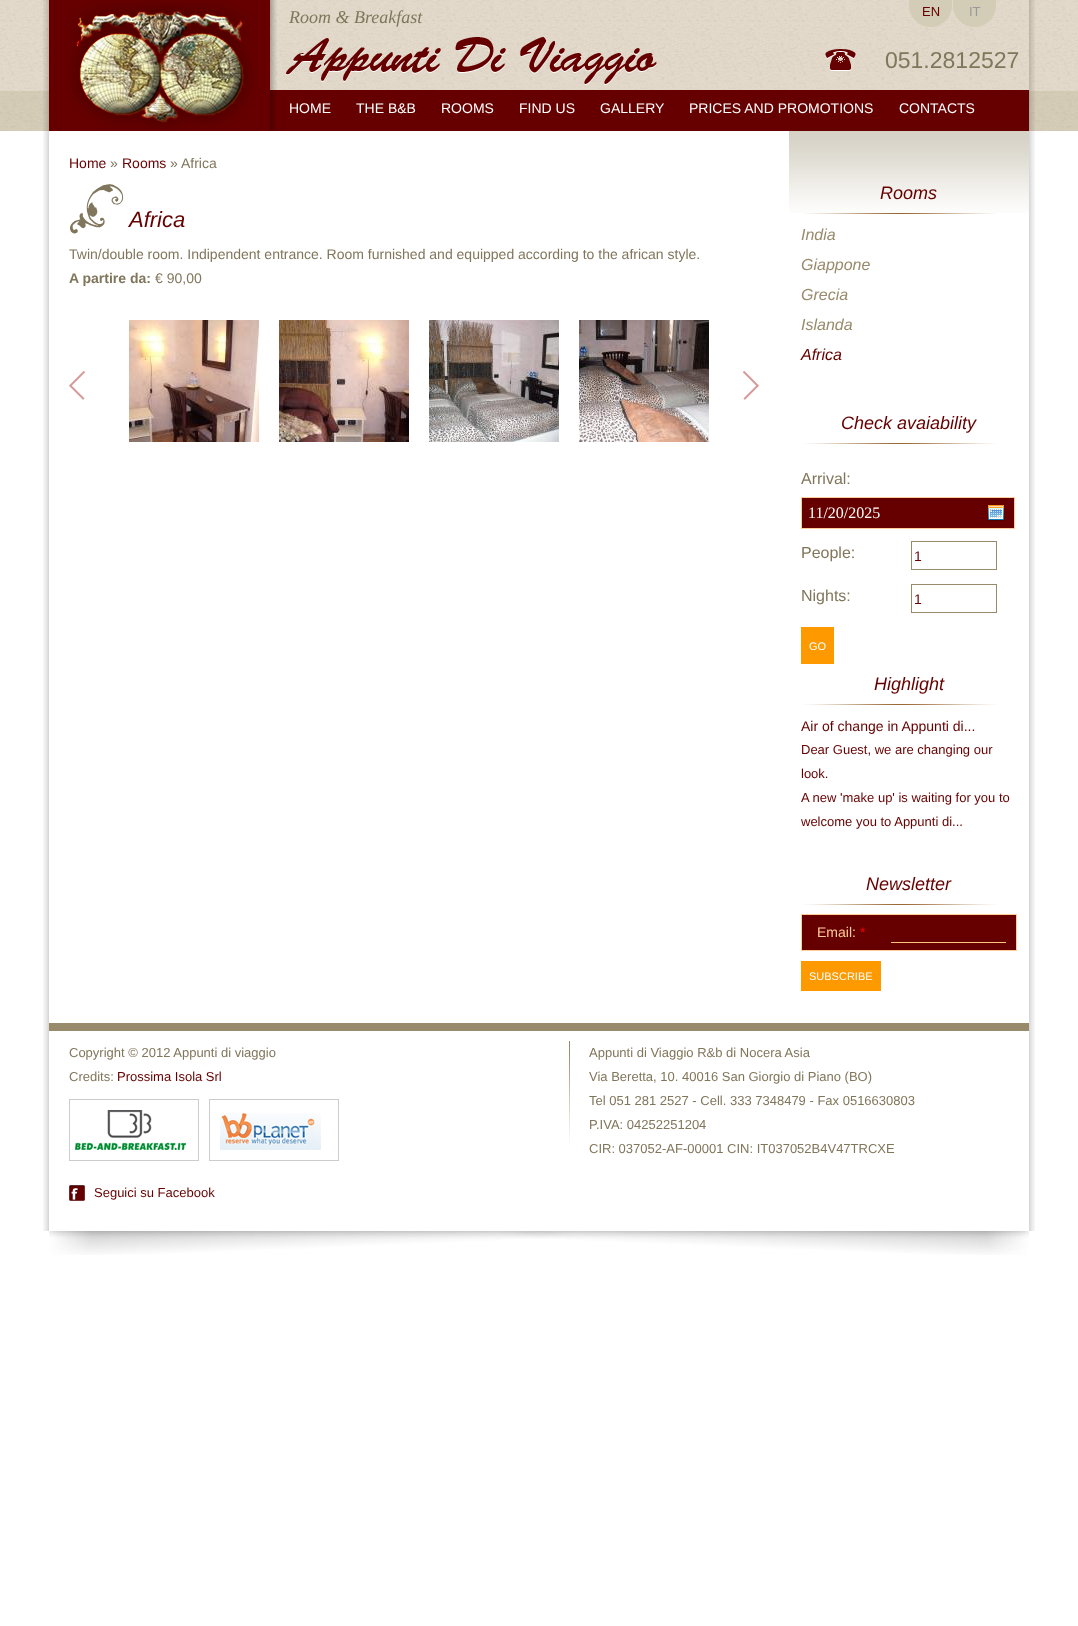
<svg xmlns="http://www.w3.org/2000/svg" xmlns:xlink="http://www.w3.org/1999/xlink" width="1078" height="1626" viewBox="0 0 1078 1626">
<style>
.cls-1{font:italic 18px Liberation Serif;fill:#80765b}
.cls-2{font:13px Liberation Sans;fill:#660000}
.cls-3{font:13px Liberation Sans;fill:#999999}
.cls-4{font:23px Liberation Sans;fill:#80765b}
.cls-5{font:14px Liberation Sans;fill:#ffffff}
.cls-6{font:14px Liberation Sans;fill:#660000}
.cls-7{font:14px Liberation Sans;fill:#80765b}
.cls-8{font:italic 22px Liberation Sans;fill:#660000}
.cls-9{font:bold 14px Liberation Sans;fill:#80765b}
.cls-10{font:italic 18px Liberation Sans;fill:#660000}
.cls-11{font:italic 16px Liberation Sans;fill:#988b6c}
.cls-12{font:italic 16px Liberation Sans;fill:#660000}
.cls-13{font:16px Liberation Sans;fill:#80765b}
.cls-14{font:16px Liberation Serif;fill:#ffffff}
.cls-15{font:11px Liberation Sans;fill:#ffffff}
.cls-16{font:14px Liberation Sans;fill:#ffcc99}
.cls-17{font:14px Liberation Sans;fill:#ff0000}
.cls-18{font:13px Liberation Sans;fill:#80765b}
</style>
<rect width="100%" height="100%" fill="#ffffff"/>
<image xlink:href="image0.png" x="0" y="0" width="1078" height="131"/>
<image xlink:href="image1.png" x="43" y="0" width="992" height="1231"/>
<rect fill="#660000" x="49" y="90" width="980" height="41"/>
<image xlink:href="image2.png" x="49" y="0" width="228" height="130"/>
<image xlink:href="image3.png" x="286" y="37" width="371" height="48"/>
<image xlink:href="image4.png" x="909" y="0" width="43" height="27"/>
<image xlink:href="image4.png" x="953" y="0" width="43" height="27"/>
<image xlink:href="image5.png" x="825" y="49" width="31" height="22"/>
<image xlink:href="image6.png" x="70" y="184" width="54" height="50"/>
<image xlink:href="image7.png" x="129" y="320" width="130" height="122"/>
<image xlink:href="image8.png" x="279" y="320" width="130" height="122"/>
<image xlink:href="image9.png" x="429" y="320" width="130" height="122"/>
<image xlink:href="image10.png" x="579" y="320" width="130" height="122"/>
<image xlink:href="image11.png" x="69" y="371" width="16" height="29"/>
<image xlink:href="image12.png" x="743" y="371" width="16" height="29"/>
<image xlink:href="image13.png" x="789" y="131" width="240" height="82"/>
<image xlink:href="image14.png" x="804" y="213" width="192" height="1"/>
<image xlink:href="image14.png" x="804" y="443" width="192" height="1"/>
<rect fill="#660000" x="802" y="498" width="212" height="30"/>
<image xlink:href="image15.png" x="988" y="505" width="16" height="16"/>
<rect fill="none" stroke="#ffcc99" x="801.5" y="497.5" width="213" height="31"/>
<rect fill="none" stroke="#988b6c" x="911.5" y="541.5" width="85" height="28"/>
<rect fill="none" stroke="#988b6c" x="911.5" y="584.5" width="85" height="28"/>
<rect fill="#ff9900" x="801" y="627" width="33" height="37"/>
<image xlink:href="image14.png" x="804" y="704" width="192" height="1"/>
<image xlink:href="image14.png" x="804" y="904" width="192" height="1"/>
<rect fill="#660000" stroke="#ffcc99" x="801.5" y="914.5" width="215" height="36"/>
<rect fill="#ffc57b" x="891" y="942" width="115" height="1"/>
<rect fill="#ff9900" x="801" y="961" width="80" height="30"/>
<rect fill="#988b6c" x="49" y="1023" width="980" height="8"/>
<image xlink:href="image16.png" x="75" y="1110" width="111" height="40"/>
<rect fill="none" stroke="#cccccc" x="69.5" y="1099.5" width="129" height="61"/>
<image xlink:href="image17.png" x="220" y="1113" width="101" height="37"/>
<rect fill="none" stroke="#cccccc" x="209.5" y="1099.5" width="129" height="61"/>
<image xlink:href="image18.png" x="69" y="1185" width="16" height="16"/>
<image xlink:href="image19.png" x="569" y="1041" width="1" height="104"/>
<image xlink:href="image20.png" x="49" y="1231" width="980" height="24"/>
<text class="cls-1" x="289" y="23">Room &amp; Breakfast</text>
<text class="cls-2" x="922" y="16">EN</text>
<text class="cls-3" x="969" y="16">IT</text>
<text class="cls-4" x="885" y="68">051.2812527</text>
<text class="cls-5" x="289" y="113">HOME</text>
<text class="cls-5" x="356" y="113">THE B&amp;B</text>
<text class="cls-5" x="441" y="113">ROOMS</text>
<text class="cls-5" x="519" y="113">FIND US</text>
<text class="cls-5" x="600" y="113">GALLERY</text>
<text class="cls-5" x="689" y="113">PRICES AND PROMOTIONS</text>
<text class="cls-5" x="899" y="113">CONTACTS</text>
<text class="cls-6" x="69" y="168">Home</text>
<text class="cls-7" x="110" y="168">»</text>
<text class="cls-6" x="122" y="168">Rooms</text>
<text class="cls-7" x="170" y="168">» Africa</text>
<text class="cls-8" x="129" y="227">Africa</text>
<text class="cls-7" x="69" y="259">Twin/double room. Indipendent entrance. Room furnished and equipped according to the african style.</text>
<text class="cls-9" x="69" y="283">A partire da:</text>
<text class="cls-7" x="155" y="283">€ 90,00</text>
<text class="cls-10" x="880" y="199">Rooms</text>
<text class="cls-11"><tspan x="801" y="240">India</tspan><tspan x="801" y="270">Giappone</tspan><tspan x="801" y="300">Grecia</tspan><tspan x="801" y="330">Islanda</tspan></text>
<text class="cls-12" x="801" y="360">Africa</text>
<text class="cls-10" x="841" y="429">Check avaiability</text>
<text class="cls-13" x="801" y="484">Arrival:</text>
<text class="cls-14" x="808" y="518">11/20/2025</text>
<text class="cls-13" x="801" y="558">People:</text>
<text class="cls-6" x="914" y="561">1</text>
<text class="cls-13" x="801" y="601">Nights:</text>
<text class="cls-6" x="914" y="604">1</text>
<text class="cls-15" x="809" y="650">GO</text>
<text class="cls-10" x="874" y="690">Highlight</text>
<text class="cls-6" x="801" y="731">Air of change in Appunti di...</text>
<text class="cls-2"><tspan x="801" y="754">Dear Guest, we are changing our</tspan><tspan x="801" y="778">look.</tspan><tspan x="801" y="802">A new 'make up' is waiting for you to</tspan><tspan x="801" y="826">welcome you to Appunti di...</tspan></text>
<text class="cls-10" x="866" y="890">Newsletter</text>
<text class="cls-16" x="817" y="937">Email:</text>
<text class="cls-17" x="860" y="937">*</text>
<text class="cls-15" x="809" y="980">SUBSCRIBE</text>
<text class="cls-18"><tspan x="69" y="1057">Copyright © 2012 Appunti di viaggio</tspan><tspan x="69" y="1081">Credits:</tspan></text>
<text class="cls-2" x="117" y="1081">Prossima Isola Srl</text>
<text class="cls-2" x="94" y="1197">Seguici su Facebook</text>
<text class="cls-18"><tspan x="589" y="1057">Appunti di Viaggio R&amp;b di Nocera Asia</tspan><tspan x="589" y="1081">Via Beretta, 10. 40016 San Giorgio di Piano (BO)</tspan><tspan x="589" y="1105">Tel 051 281 2527 - Cell. 333 7348479 - Fax 0516630803</tspan><tspan x="589" y="1129">P.IVA: 04252251204</tspan><tspan x="589" y="1153">CIR: 037052-AF-00001 CIN: IT037052B4V47TRCXE</tspan></text>
</svg>
